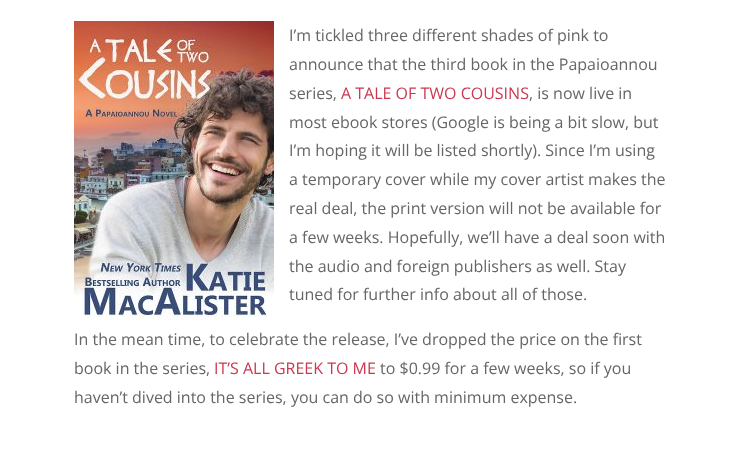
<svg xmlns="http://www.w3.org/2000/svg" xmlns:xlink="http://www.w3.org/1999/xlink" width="741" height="470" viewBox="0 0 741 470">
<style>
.cls-1{font:16px Open Sans;fill:#666666}
.cls-2{font:16px Open Sans;fill:#ca3851}
</style>
<rect width="100%" height="100%" fill="#ffffff"/>
<image xlink:href="image0.png" x="74" y="21" width="200" height="300"/>
<text class="cls-1"><tspan x="289" y="41">I’m tickled three different shades of pink to</tspan><tspan x="289" y="70">announce that the third book in the Papaioannou</tspan><tspan x="289" y="99">series,</tspan></text>
<text class="cls-2" x="341" y="99">A TALE OF TWO COUSINS</text>
<text class="cls-1" x="529" y="99">, is now live in</text>
<text class="cls-1"><tspan x="289" y="128">most ebook stores (Google is being a bit slow, but</tspan><tspan x="289" y="156">I’m hoping it will be listed shortly). Since I’m using</tspan><tspan x="289" y="185">a temporary cover while my cover artist makes the</tspan><tspan x="289" y="214">real deal, the print version will not be available for</tspan><tspan x="289" y="243">a few weeks. Hopefully, we’ll have a deal soon with</tspan><tspan x="289" y="272">the audio and foreign publishers as well. Stay</tspan><tspan x="289" y="300">tuned for further info about all of those.</tspan></text>
<text class="cls-1"><tspan x="74" y="345">In the mean time, to celebrate the release, I’ve dropped the price on the first</tspan><tspan x="74" y="374">book in the series,</tspan></text>
<text class="cls-2" x="214" y="374">IT’S ALL GREEK TO ME</text>
<text class="cls-1" x="380" y="374">to $0.99 for a few weeks, so if you</text>
<text class="cls-1" x="74" y="403">haven’t dived into the series, you can do so with minimum expense.</text>
</svg>
